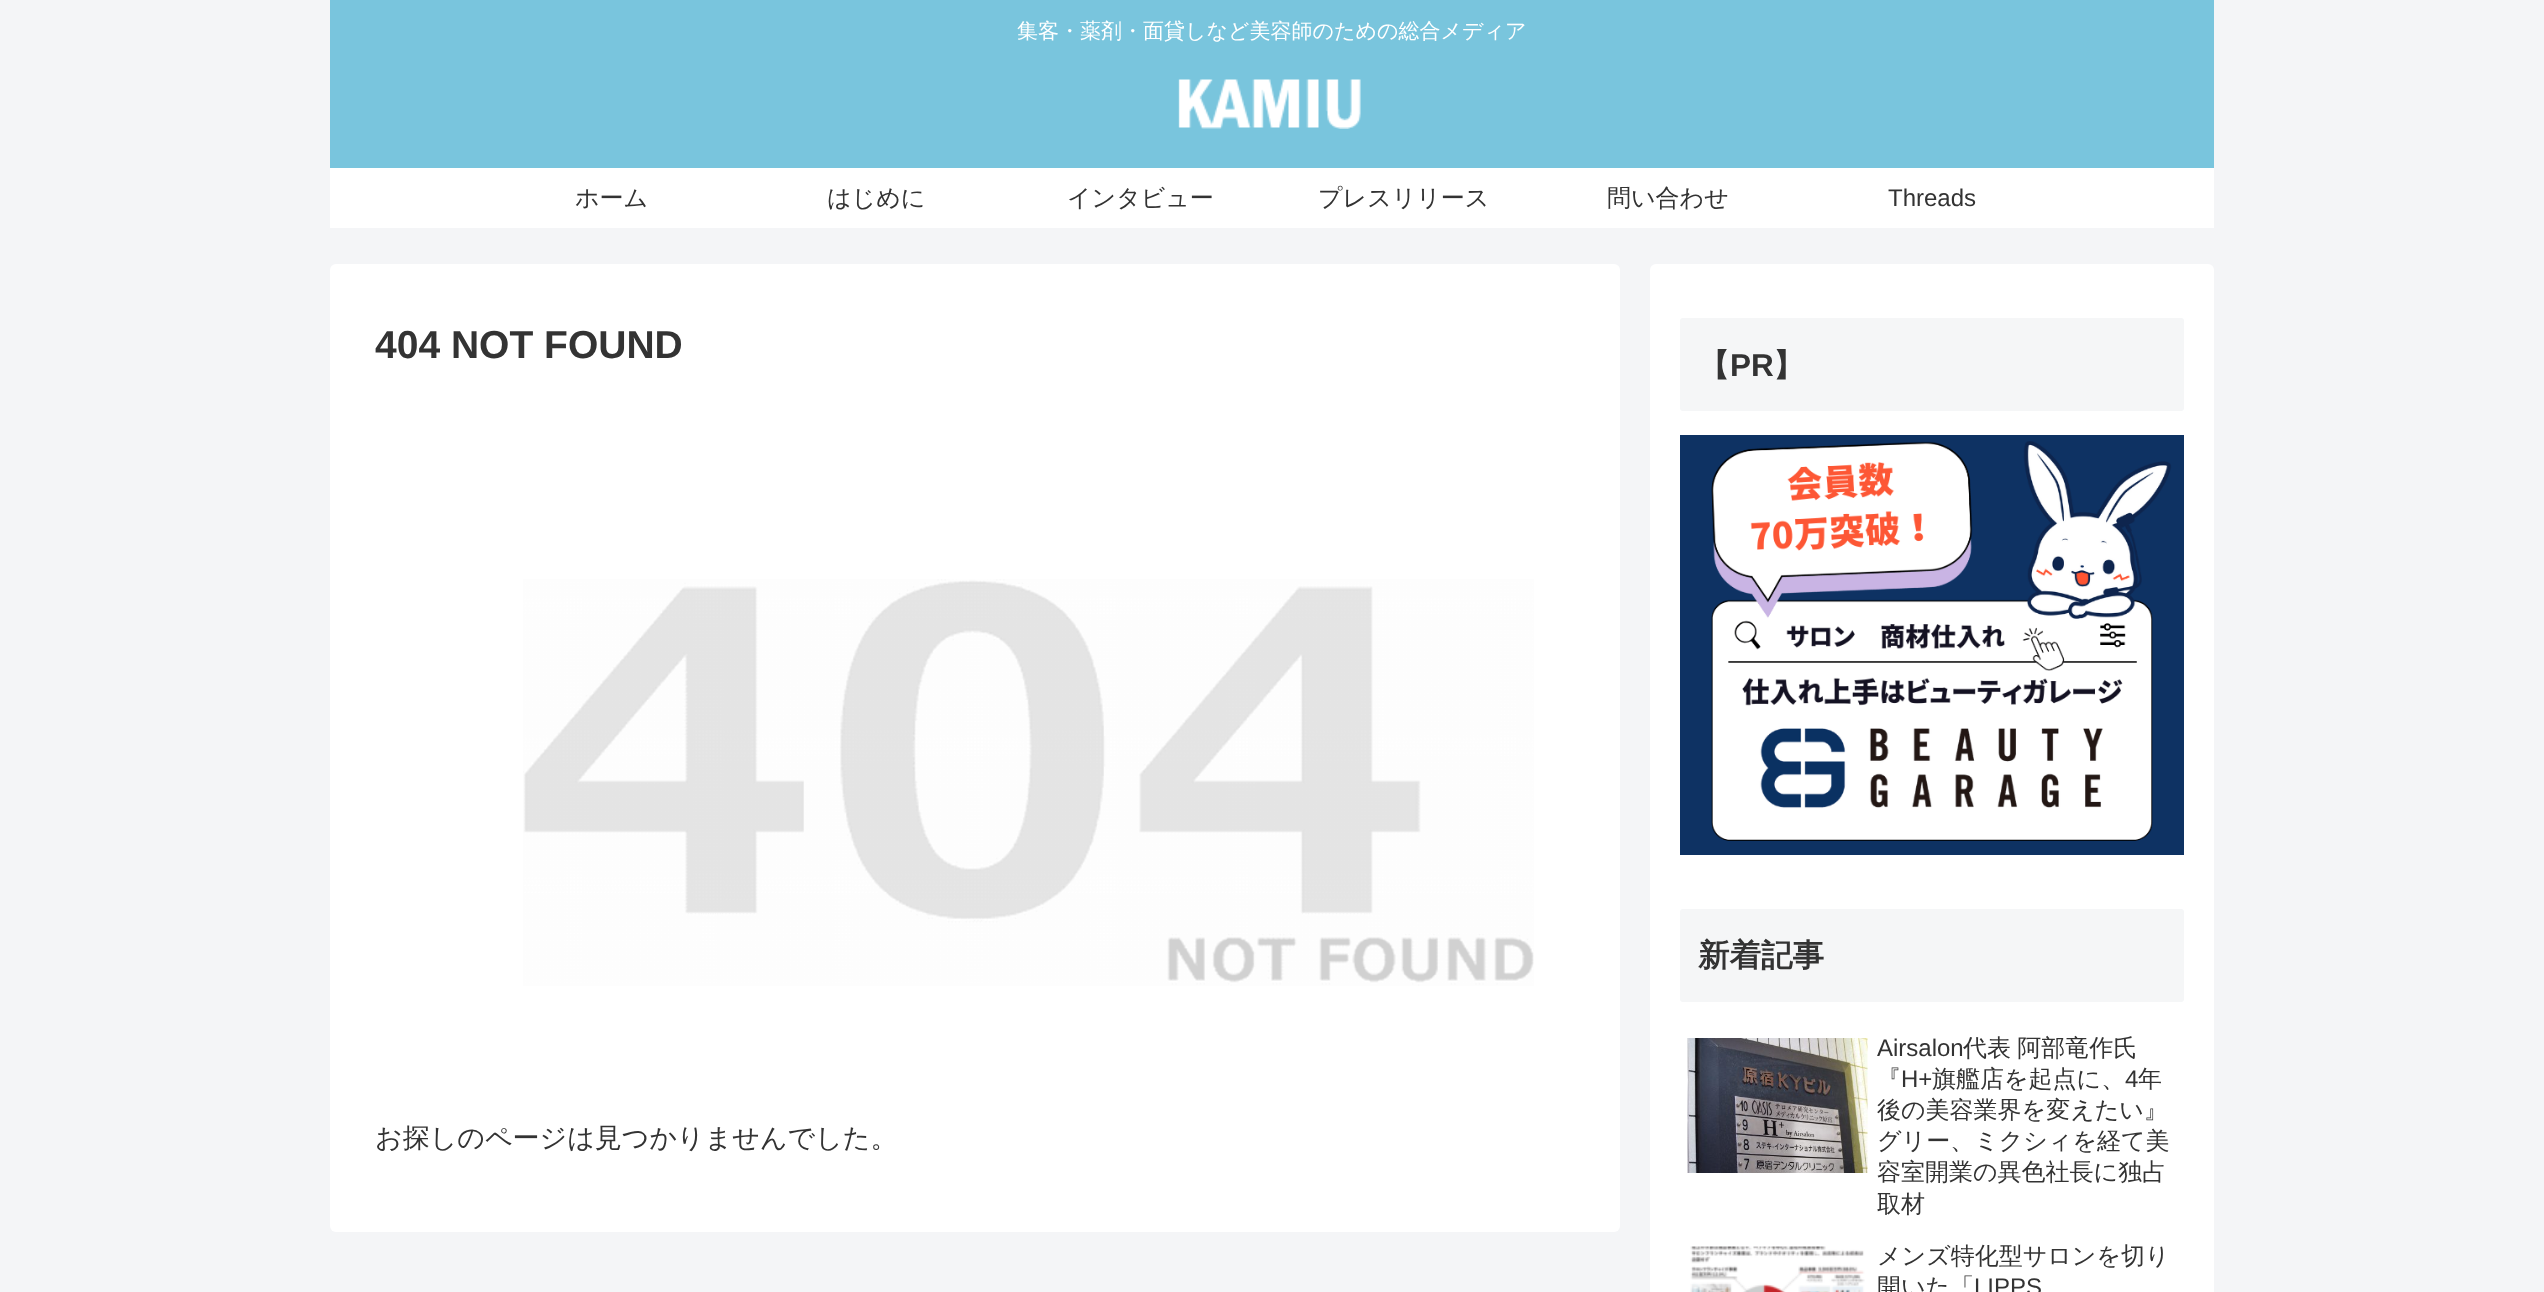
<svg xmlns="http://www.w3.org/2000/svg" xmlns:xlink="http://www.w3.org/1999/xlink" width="2544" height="1292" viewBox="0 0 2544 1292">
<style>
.cls-1{font:500 21px WenQuanYi Zen Hei;fill:#ffffff}
.cls-2{font:500 24px WenQuanYi Zen Hei;fill:#333333}
.cls-3{font:24px Liberation Sans;fill:#333333}
.cls-4{font:bold 39px Liberation Sans;fill:#333333}
.cls-5{font:500 27px WenQuanYi Zen Hei;fill:#333333}
.cls-6{font:bold 31.5px WenQuanYi Zen Hei;fill:#333333}
.cls-7{font:bold 31.5px Liberation Sans;fill:#333333}
</style>
<rect width="100%" height="100%" fill="#f4f5f7"/>
<rect fill="#ffffff" x="330" y="168" width="1884" height="60"/>
<rect fill="#79c5dd" x="330" y="0" width="1884" height="168"/>
<image xlink:href="image0.png" x="1178" y="79" width="183" height="50"/>
<rect fill="#ffffff" x="330" y="264" width="1290" height="968" rx="6"/>
<image xlink:href="image1.png" x="523" y="579" width="1011" height="407"/>
<rect fill="#ffffff" x="1650" y="264" width="564" height="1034" rx="6"/>
<rect fill="#f5f6f7" x="1680" y="318" width="504" height="93" rx="3"/>
<image xlink:href="image2.png" x="1680" y="435" width="504" height="420"/>
<rect fill="#f5f6f7" x="1680" y="909" width="504" height="93" rx="3"/>
<image xlink:href="image3.png" x="1687" y="1038" width="181" height="135"/>
<image xlink:href="image4.png" x="1690" y="1246" width="175" height="46"/>
<text class="cls-1" x="1017" y="38">集客・薬剤・面貸しなど美容師のための総合メディア</text>
<text class="cls-2" x="575" y="206">ホーム</text>
<text class="cls-2" x="827" y="206">はじめに</text>
<text class="cls-2" x="1067" y="206">インタビュー</text>
<text class="cls-2" x="1318" y="206">プレスリリース</text>
<text class="cls-2" x="1607" y="206">問い合わせ</text>
<text class="cls-3" x="1888" y="206">Threads</text>
<text class="cls-4" x="375" y="358">404 NOT FOUND</text>
<text class="cls-5" x="375" y="1147">お探しのページは見つかりませんでした。</text>
<text class="cls-6" x="1698" y="376">【</text>
<text class="cls-7" x="1730" y="376">PR</text>
<text class="cls-6" x="1773" y="376">】</text>
<text class="cls-6" x="1698" y="966">新着記事</text>
<text class="cls-3" x="1877" y="1056">Airsalon</text>
<text class="cls-2" x="1963" y="1056" word-spacing="-1">代表 阿部竜作氏</text>
<text class="cls-2" x="1877" y="1087">『</text>
<text class="cls-3" x="1901" y="1087">H+</text>
<text class="cls-2" x="1932" y="1087">旗艦店を起点に、</text>
<text class="cls-3" x="2125" y="1087">4</text>
<text class="cls-2" x="2138" y="1087">年</text>
<text class="cls-2"><tspan x="1877" y="1118">後の美容業界を変えたい』</tspan><tspan x="1877" y="1149">グリー、ミクシィを経て美</tspan><tspan x="1877" y="1180">容室開業の異色社長に独占</tspan><tspan x="1877" y="1212">取材</tspan></text>
<text class="cls-2"><tspan x="1877" y="1264">メンズ特化型サロンを切り</tspan><tspan x="1877" y="1295">開いた「</tspan></text>
<text class="cls-3" x="1974" y="1295">LIPPS</text>
</svg>
